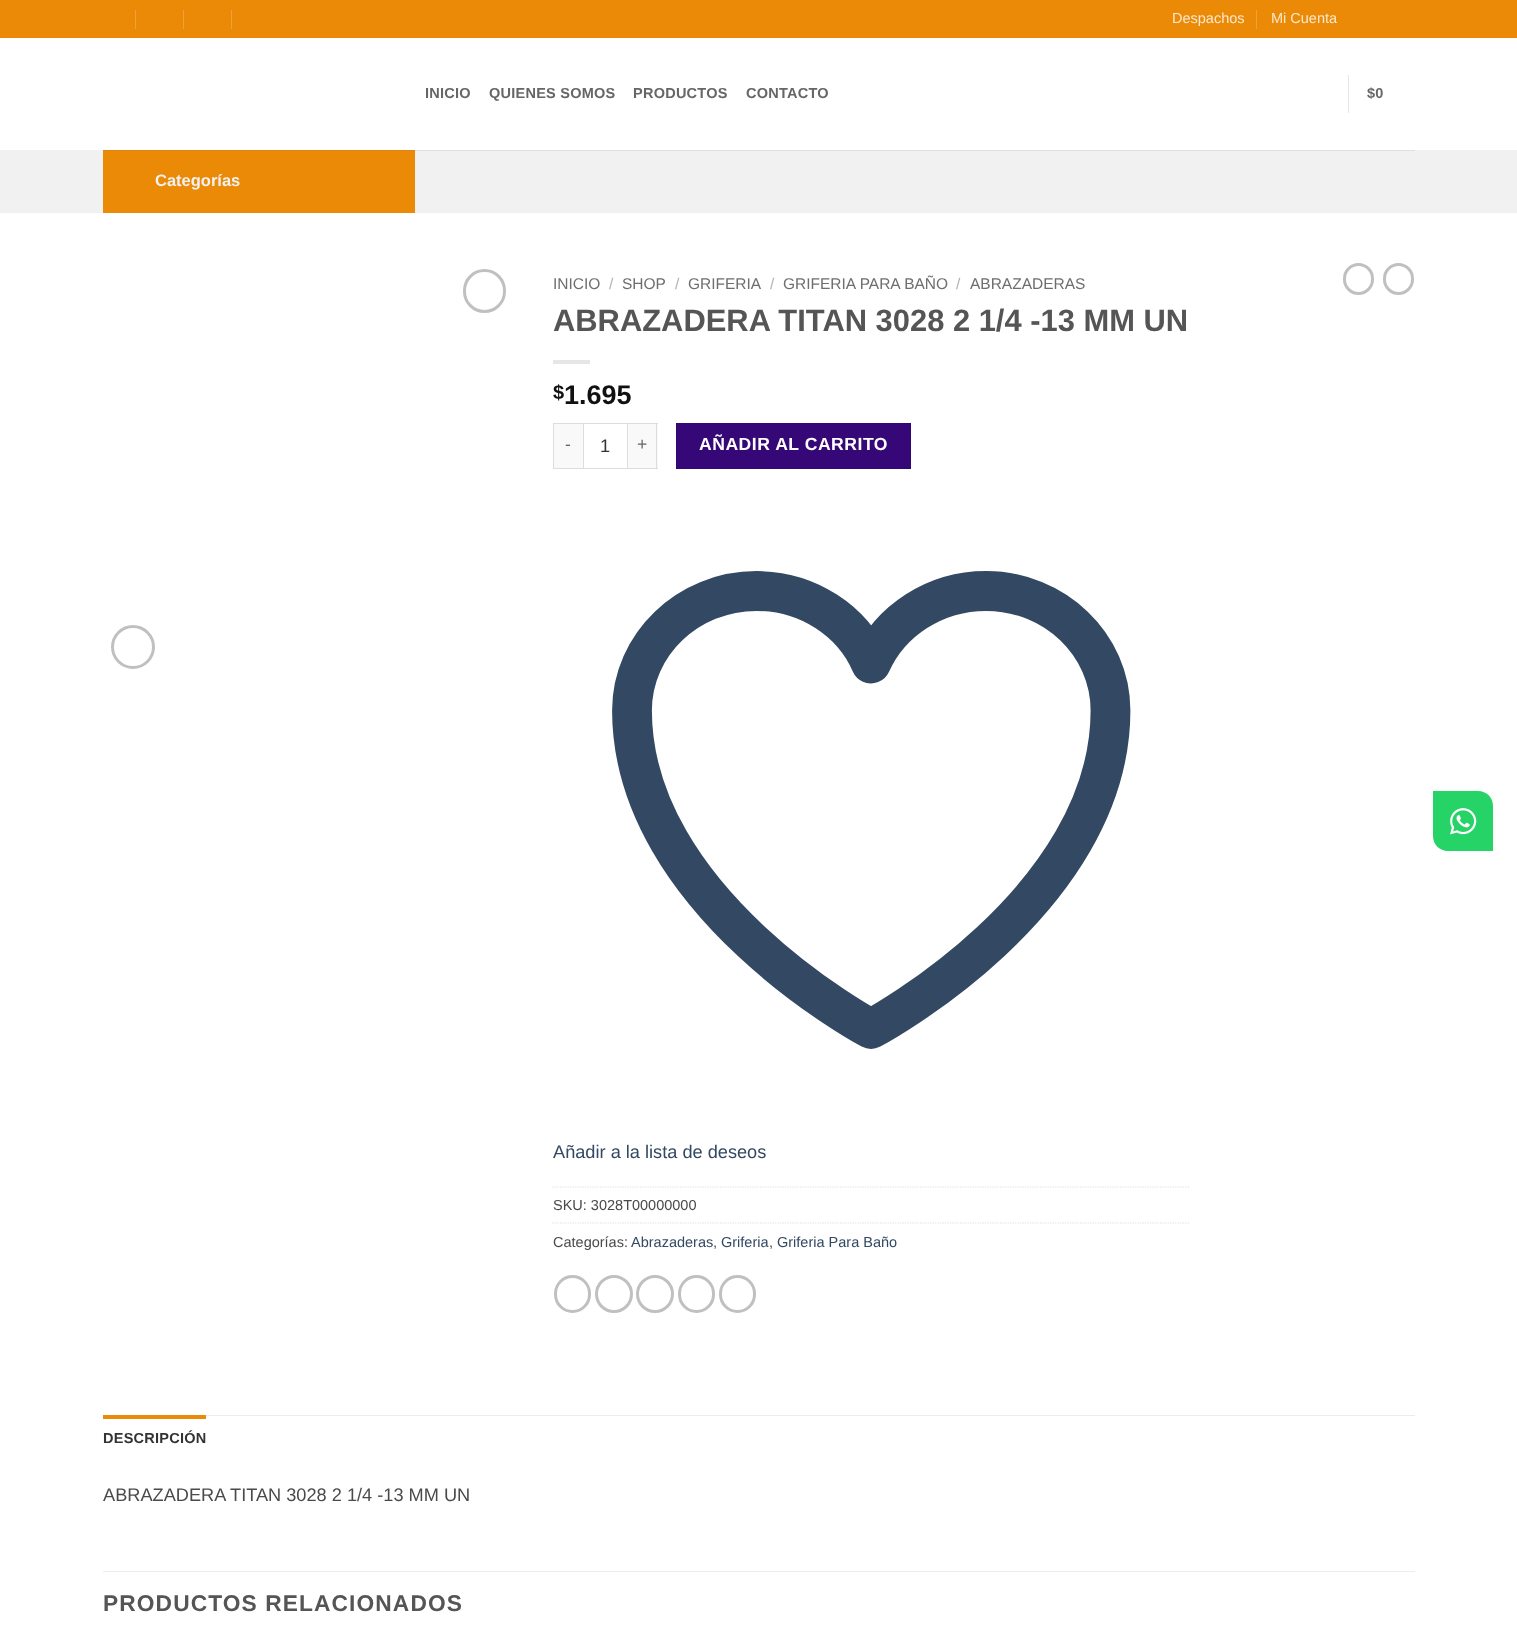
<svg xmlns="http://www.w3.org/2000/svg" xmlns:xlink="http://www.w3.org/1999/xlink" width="1517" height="1642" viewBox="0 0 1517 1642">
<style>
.cls-1{font:14.5px Liberation Sans;fill:#fbe8cd}
.cls-2{font:bold 14.5px Liberation Sans;letter-spacing:0.25px;fill:#666666}
.cls-3{font:bold 16.5px Liberation Sans;fill:#f1f1f1}
.cls-4{font:15.5px Liberation Sans;fill:#6e6e6e}
.cls-5{font:15.5px Liberation Sans;fill:#b2b2b2}
.cls-6{font:bold 30.9px Liberation Sans;fill:#555555}
.cls-7{font:bold 20px Liberation Sans;fill:#111111}
.cls-8{font:bold 27px Liberation Sans;fill:#111111}
.cls-9{font:17.6px Liberation Sans;letter-spacing:0.5px;fill:#666666}
.cls-10{font:18.2px Liberation Sans;fill:#333333}
.cls-11{font:bold 17.6px Liberation Sans;letter-spacing:0.5px;fill:#ffffff}
.cls-12{font:18.2px Liberation Sans;fill:#334862}
.cls-13{font:14.5px Liberation Sans;fill:#4a4a4a}
.cls-14{font:14.5px Liberation Sans;fill:#334862}
.cls-15{font:bold 14.5px Liberation Sans;letter-spacing:0.25px;fill:#333333}
.cls-16{font:18.2px Liberation Sans;fill:#4a4a4a}
.cls-17{font:bold 22.75px Liberation Sans;letter-spacing:1.1px;fill:#555555}
</style>
<rect width="100%" height="100%" fill="#ffffff"/>
<rect fill="#eb8a07" x="0" y="0" width="1517" height="38"/>
<rect fill="#efa139" x="135" y="10" width="1" height="19"/>
<rect fill="#efa139" x="183" y="10" width="1" height="19"/>
<rect fill="#efa139" x="231" y="10" width="1" height="19"/>
<rect fill="#efa139" x="1256" y="10" width="1" height="19"/>
<rect fill="#e6e6e6" x="1348" y="75" width="1" height="38"/>
<rect fill="#f1f1f1" x="0" y="150" width="1517" height="63"/>
<rect fill="#e0e0e0" x="415" y="150" width="1000" height="1"/>
<rect fill="#eb8a07" x="103" y="151" width="312" height="62"/>
<rect fill="#db840e" x="103" y="150" width="312" height="1"/>
<rect fill="none" stroke="#c0c0c0" stroke-width="3" x="464.5" y="270.5" width="40" height="41" rx="20"/>
<circle fill="none" stroke="#c0c0c0" stroke-width="3" cx="133" cy="647" r="20.5"/>
<rect fill="#e6e6e6" x="553" y="360" width="37" height="4"/>
<rect fill="#f9f9f9" x="554" y="424" width="29" height="44"/>
<rect fill="#dddddd" x="553" y="423" width="30" height="1"/>
<rect fill="#dddddd" x="553" y="468" width="30" height="1"/>
<rect fill="#dddddd" x="553" y="423" width="1" height="46"/>
<rect fill="none" stroke="#dddddd" x="583.5" y="423.5" width="44" height="45"/>
<rect fill="#f9f9f9" x="628" y="424" width="30" height="44"/>
<rect fill="#dddddd" x="628" y="423" width="30" height="1"/>
<rect fill="#dddddd" x="656" y="423" width="1" height="46"/>
<rect fill="#dddddd" x="628" y="468" width="30" height="1"/>
<rect fill="#360777" stroke="#330771" x="676.5" y="423.5" width="234" height="45"/>
<path fill="none" stroke="#334862" stroke-width="39.8" stroke-linecap="round" stroke-linejoin="round" d="M1110.5 710.5C1110.5 644.5 1054.5 591 986 591C934.5 591 890 621 871 663.5C852.5 621 808 591 756.5 591C688 591 632 644.5 632 710.5C632 902 871 1029 871 1029C871 1029 1110.5 902 1110.5 710.5Z"/>
<path fill="none" stroke="#dddddd" stroke-width="1.2" stroke-dasharray="1.25 1.25" d="M552.5 1187H1190"/>
<path fill="none" stroke="#dddddd" stroke-width="1.2" stroke-dasharray="1.25 1.25" d="M552.5 1223H1190"/>
<rect fill="none" stroke="#c0c0c0" stroke-width="3" x="555.5" y="1276.5" width="34" height="35" rx="17"/>
<circle fill="none" stroke="#c0c0c0" stroke-width="3" cx="614" cy="1294" r="17.5"/>
<circle fill="none" stroke="#c0c0c0" stroke-width="3" cx="655" cy="1294" r="17.5"/>
<rect fill="none" stroke="#c0c0c0" stroke-width="3" x="679.5" y="1276.5" width="34" height="35" rx="17"/>
<rect fill="none" stroke="#c0c0c0" stroke-width="3" x="720.5" y="1276.5" width="34" height="35" rx="17"/>
<rect fill="none" stroke="#c0c0c0" stroke-width="3" x="1344.5" y="264.5" width="28" height="29" rx="14"/>
<rect fill="none" stroke="#c0c0c0" stroke-width="3" x="1384.5" y="264.5" width="28" height="29" rx="14"/>
<rect fill="#ececec" x="206" y="1415" width="1209" height="1"/>
<rect fill="#eb8a07" x="103" y="1415" width="103" height="4"/>
<rect fill="#ececec" x="103" y="1571" width="1312" height="1"/>
<path fill="#25d366" d="M1433 791H1478C1486.5 791 1493 797.5 1493 806V851H1448C1439.5 851 1433 844.5 1433 836Z"/>
<image xlink:href="image0.png" x="1450" y="808" width="27" height="27"/>
<text class="cls-1" x="1172" y="23">Despachos</text>
<text class="cls-1" x="1271" y="23">Mi Cuenta</text>
<text class="cls-2" x="425" y="98">INICIO</text>
<text class="cls-2" x="489" y="98">QUIENES SOMOS</text>
<text class="cls-2" x="633" y="98">PRODUCTOS</text>
<text class="cls-2" x="746" y="98">CONTACTO</text>
<text class="cls-2" x="1367" y="98">$0</text>
<text class="cls-3" x="155" y="186">Categorías</text>
<text class="cls-4" x="553" y="289">INICIO</text>
<text class="cls-5" x="609" y="289">/</text>
<text class="cls-4" x="622" y="289">SHOP</text>
<text class="cls-5" x="675" y="289">/</text>
<text class="cls-4" x="688" y="289">GRIFERIA</text>
<text class="cls-5" x="770" y="289">/</text>
<text class="cls-4" x="783" y="289">GRIFERIA PARA BAÑO</text>
<text class="cls-5" x="956" y="289">/</text>
<text class="cls-4" x="970" y="289">ABRAZADERAS</text>
<text class="cls-6" x="553" y="331">ABRAZADERA TITAN 3028 2 1/4 -13 MM UN</text>
<text class="cls-7" x="553" y="399">$</text>
<text class="cls-8" x="564" y="404">1.695</text>
<text class="cls-9" x="565" y="450">-</text>
<text class="cls-10" x="600" y="452">1</text>
<text class="cls-9" x="637" y="450">+</text>
<text class="cls-11" x="699" y="450">AÑADIR AL CARRITO</text>
<text class="cls-12" x="553" y="1158">Añadir a la lista de deseos</text>
<text class="cls-13" x="553" y="1210">SKU: 3028T00000000</text>
<text class="cls-13" x="553" y="1247">Categorías:</text>
<text class="cls-14" x="631" y="1247">Abrazaderas</text>
<text class="cls-13" x="713" y="1247">,</text>
<text class="cls-14" x="721" y="1247">Griferia</text>
<text class="cls-13" x="769" y="1247">,</text>
<text class="cls-14" x="777" y="1247">Griferia Para Baño</text>
<text class="cls-15" x="103" y="1443">DESCRIPCIÓN</text>
<text class="cls-16" x="103" y="1501">ABRAZADERA TITAN 3028 2 1/4 -13 MM UN</text>
<text class="cls-17" x="103" y="1611">PRODUCTOS RELACIONADOS</text>
</svg>
